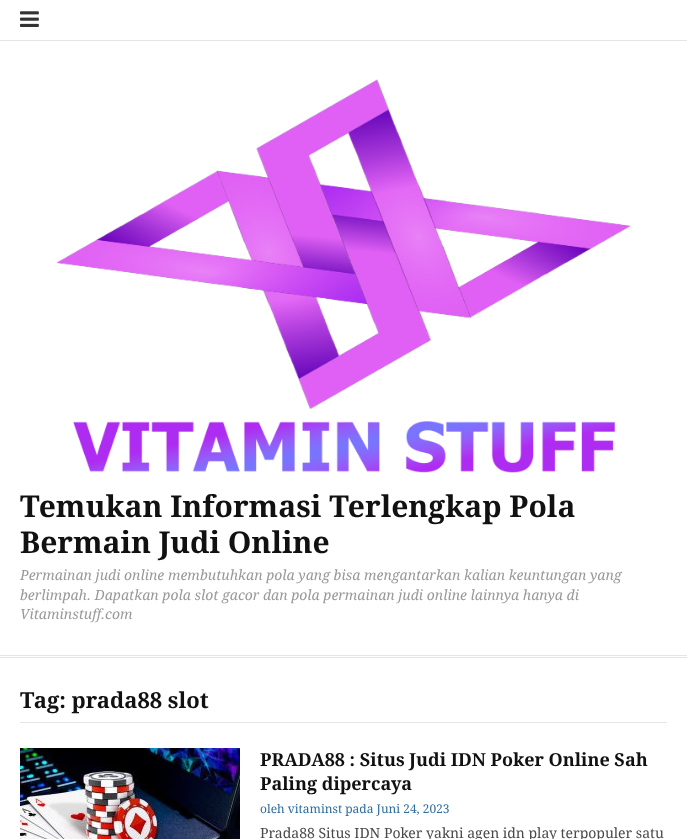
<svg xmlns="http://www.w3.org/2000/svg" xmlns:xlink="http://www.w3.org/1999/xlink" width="687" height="839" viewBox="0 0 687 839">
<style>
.cls-1{font:bold 30px Droid Serif;fill:#111111}
.cls-2{font:italic 14px Droid Serif;fill:#999999}
.cls-3{font:bold 22px Droid Serif;fill:#111111}
.cls-4{font:bold 18px Droid Serif;fill:#111111}
.cls-5{font:12px Droid Serif;fill:#2e6d9d}
.cls-6{font:14px Droid Serif;fill:#494949}
</style>
<rect width="100%" height="100%" fill="#ffffff"/>
<rect fill="#e5e5e5" x="0" y="655" width="687" height="1"/>
<rect fill="#e5e5e5" x="0" y="657" width="687" height="1"/>
<rect fill="#e5e5e5" x="0" y="40" width="687" height="1"/>
<image xlink:href="image0.png" x="20" y="11" width="19" height="16"/>
<image xlink:href="image1.png" x="56" y="79" width="575" height="394"/>
<rect fill="#e5e5e5" x="20" y="722" width="647" height="1"/>
<image xlink:href="image2.png" x="20" y="748" width="220" height="91"/>
<text class="cls-1"><tspan x="20" y="517">Temukan Informasi Terlengkap Pola</tspan><tspan x="20" y="553">Bermain Judi Online</tspan></text>
<text class="cls-2"><tspan x="20" y="580">Permainan judi online membutuhkan pola yang bisa mengantarkan kalian keuntungan yang</tspan><tspan x="20" y="600">berlimpah. Dapatkan pola slot gacor dan pola permainan judi online lainnya hanya di</tspan><tspan x="20" y="619">Vitaminstuff.com</tspan></text>
<text class="cls-3" x="20" y="708">Tag: prada88 slot</text>
<text class="cls-4"><tspan x="260" y="766">PRADA88 : Situs Judi IDN Poker Online Sah</tspan><tspan x="260" y="790">Paling dipercaya</tspan></text>
<text class="cls-5" x="260" y="813">oleh vitaminst pada Juni 24, 2023</text>
<text class="cls-6" x="260" y="838">Prada88 Situs IDN Poker yakni agen idn play terpopuler satu</text>
</svg>
